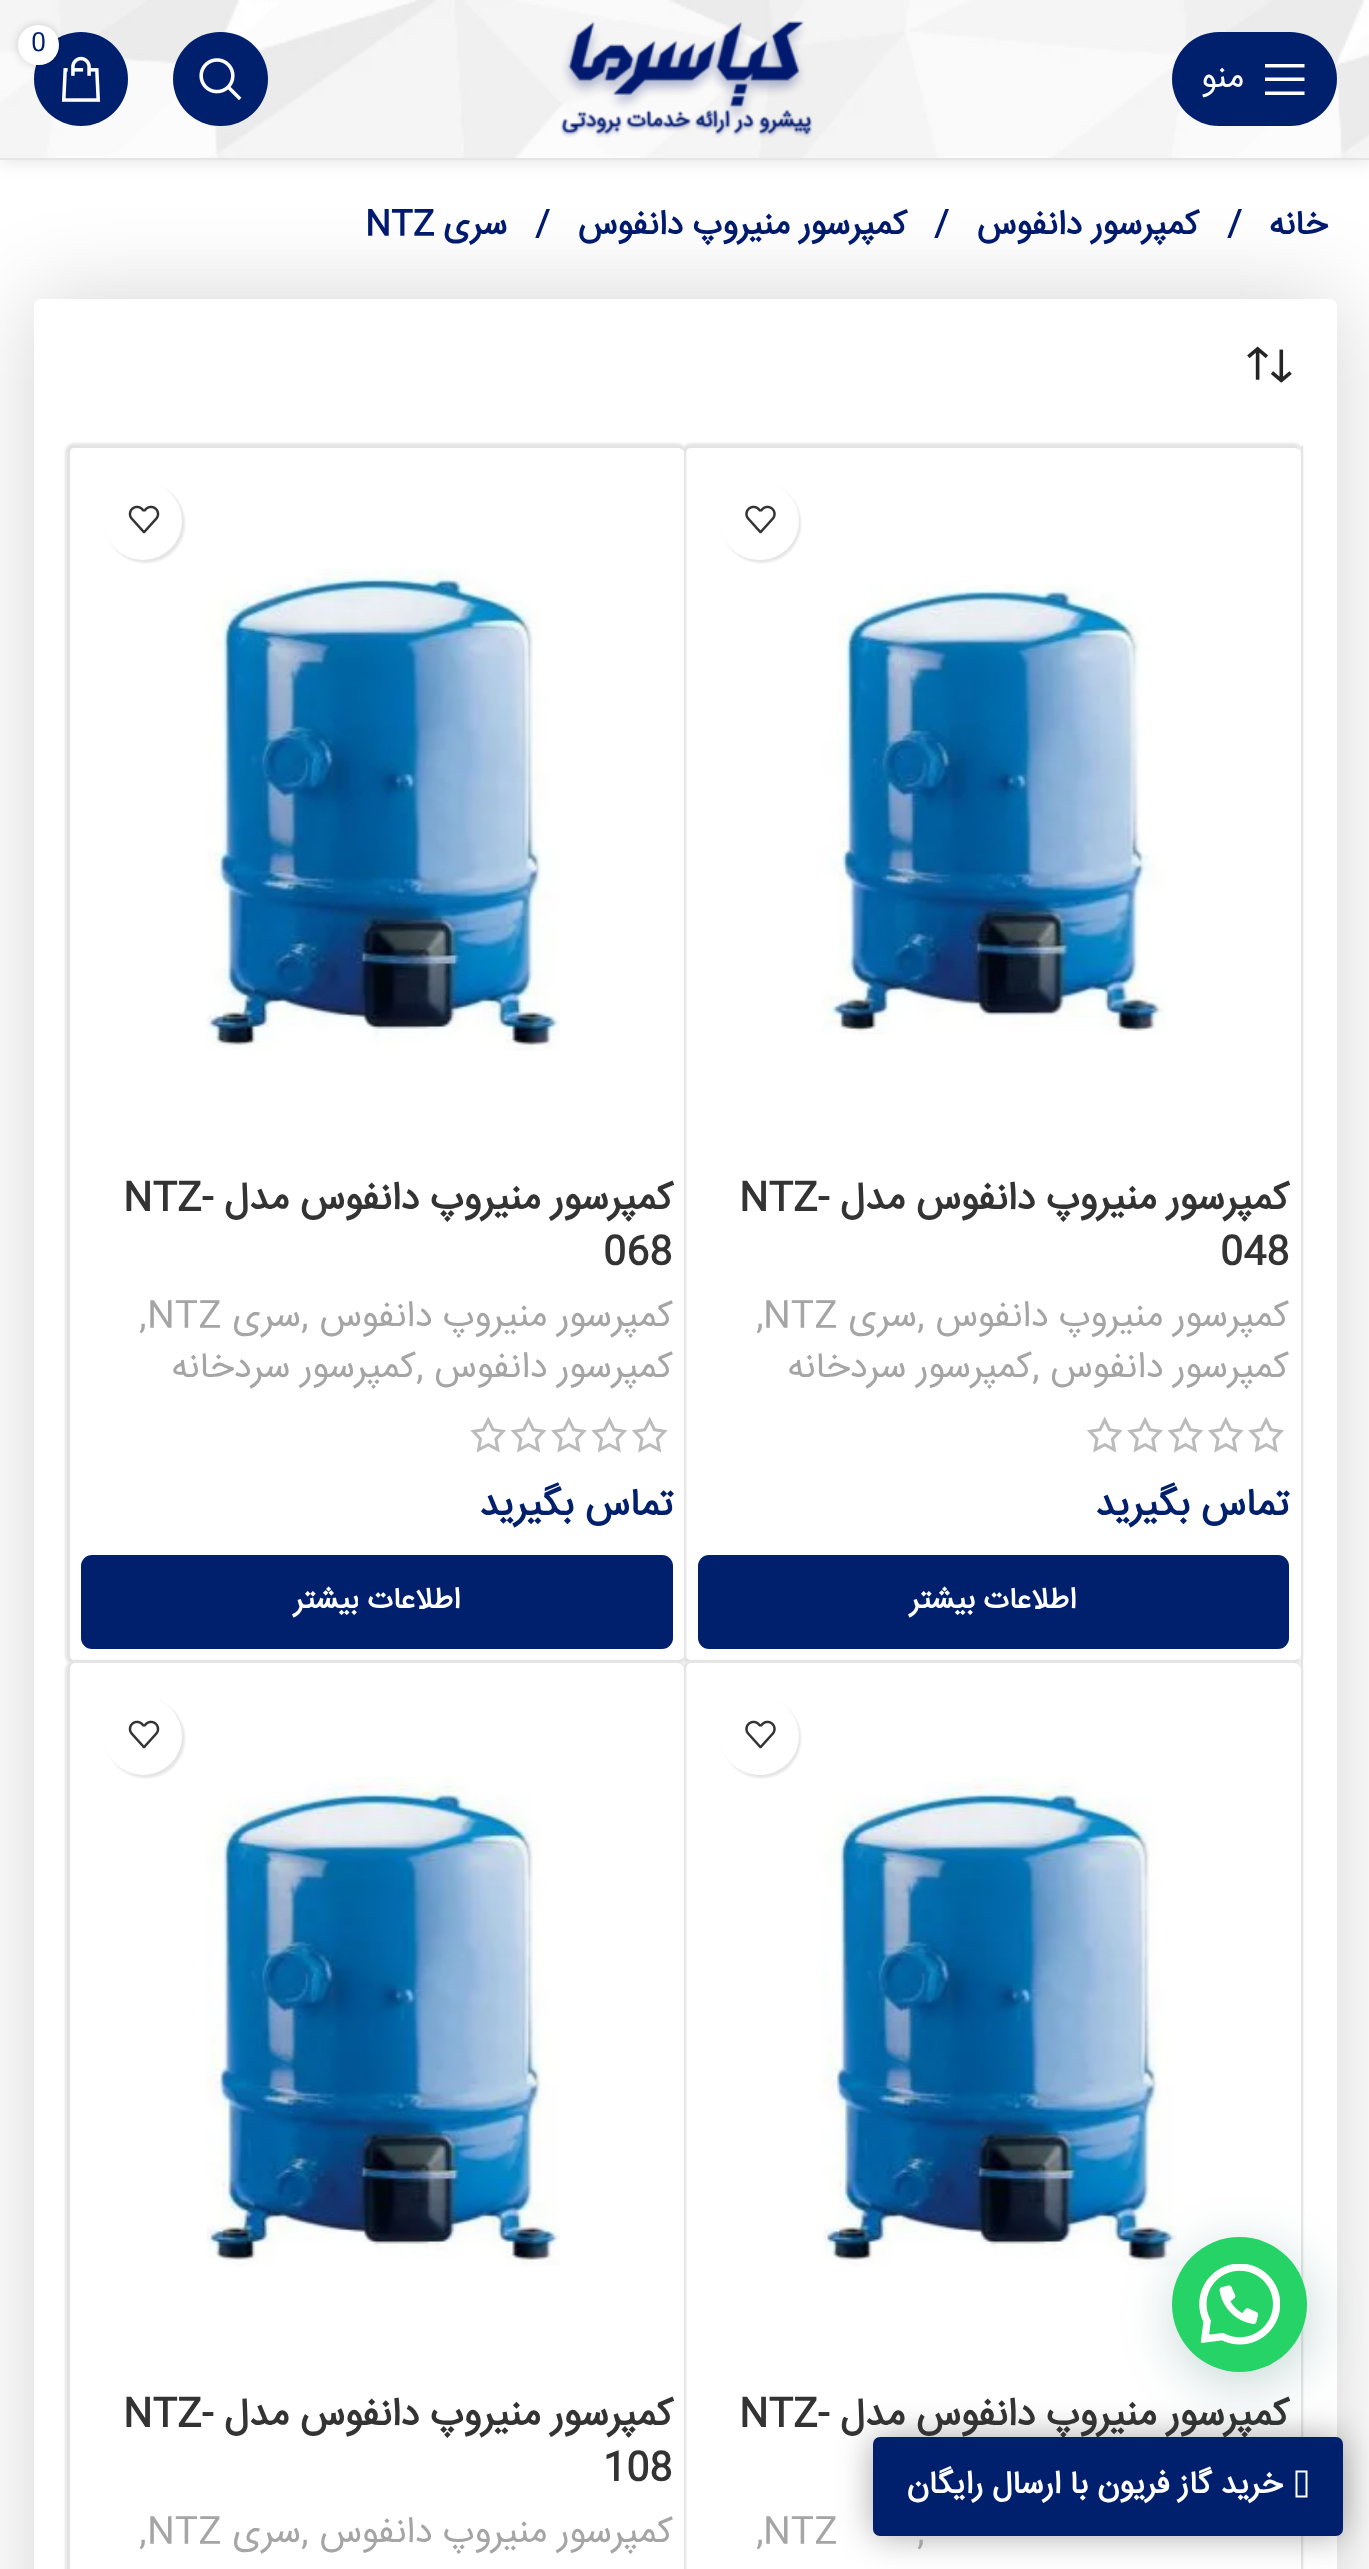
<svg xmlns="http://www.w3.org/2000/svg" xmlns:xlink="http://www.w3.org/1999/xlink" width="1369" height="2569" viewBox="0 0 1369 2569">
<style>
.cls-1{font:25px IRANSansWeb;fill:#00206e}
.cls-2{font:33.75px IRANSansWeb;direction:rtl;fill:#ffffff}
.cls-3{font:bold 33.75px IRANSansWeb;direction:rtl;fill:#001a6e}
.cls-4{font:bold 33.75px IRANSansWeb;fill:#001a6e}
.cls-5{font:bold 38.25px IRANSansWeb;direction:rtl;fill:#333333}
.cls-6{font:bold 38.25px IRANSansWeb;fill:#333333}
.cls-7{font:36.25px IRANSansWeb;direction:rtl;fill:#a5a5a5}
.cls-8{font:36.25px IRANSansWeb;fill:#a5a5a5}
.cls-9{font:bold 38.25px IRANSansWeb;direction:rtl;fill:#00206e}
.cls-10{font:bold 29.25px IRANSansWeb;direction:rtl;fill:#ffffff}
.cls-11{font:bold 31.5px IRANSansWeb;direction:rtl;fill:#ffffff}
</style>
<rect width="100%" height="100%" fill="#ffffff"/>
<rect fill="#000000" fill-opacity="0.1" filter="blur(9px)" x="0" y="2" width="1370" height="160"/>
<rect fill="#ffffff" x="0" y="0" width="1369" height="158"/>
<image xlink:href="image0.png" x="0" y="0" width="1369" height="158"/>
<rect fill="#e5e5e5" x="0" y="158" width="1369" height="2"/>
<image xlink:href="image1.png" x="560" y="21" width="253" height="117"/>
<rect fill="#00206e" x="173" y="32" width="95" height="94" rx="47"/>
<image xlink:href="image2.png" x="199" y="58" width="43" height="43"/>
<circle fill="#00206e" cx="81" cy="79" r="47"/>
<image xlink:href="image3.png" x="61" y="56" width="40" height="46"/>
<rect fill="#000000" fill-opacity="0.17" filter="blur(4.5px)" x="18" y="25" width="41" height="40" rx="20"/>
<rect fill="#ffffff" x="18" y="25" width="41" height="40" rx="20"/>
<rect fill="#00206e" x="1172" y="32" width="165" height="94" rx="47"/>
<path fill="#ffffff" d="M1265 67.5H1304.5V64H1265ZM1265 81H1304.5V77.5H1265ZM1265 95H1304.5V91.5H1265Z"/>
<rect fill="#000000" fill-opacity="0.17" filter="blur(45px)" x="34" y="299" width="1303" height="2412" rx="7"/>
<rect fill="#ffffff" x="34" y="299" width="1303" height="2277" rx="7"/>
<image xlink:href="image4.png" x="1247" y="346" width="45" height="37"/>
<rect fill="#e4e4e4" x="1301" y="446" width="2" height="2123"/>
<rect fill="#e6e6e6" filter="blur(1px)" x="682" y="443" width="621" height="1222" rx="9"/>
<rect fill="#ffffff" x="684" y="446" width="617" height="1217" rx="7"/>
<path fill="#000000" fill-opacity="0.11" fill-rule="evenodd" d="M691 446H1294C1297 446 1300 449 1300 452V1656C1300 1660 1297 1663 1294 1663H691C687 1663 684 1660 684 1656V452C684 449 687 446 691 446ZM691 448H1294C1297 448 1300 450 1300 452V1656C1300 1658 1297 1660 1294 1660H691C688 1660 686 1658 686 1656V452C686 450 688 448 691 448Z"/>
<rect fill="#000000" fill-opacity="0.1" filter="blur(1px)" x="722" y="484" width="79" height="79" rx="39.5"/>
<rect fill="#ffffff" x="720" y="482" width="79" height="78" rx="39"/>
<image xlink:href="image5.png" x="745" y="505" width="31" height="29"/>
<image xlink:href="image6.png" x="821" y="584" width="344" height="450"/>
<image xlink:href="image7.png" x="1087" y="1416" width="197" height="37"/>
<rect fill="#00206e" x="698" y="1555" width="591" height="94" rx="11"/>
<rect fill="#e6e6e6" filter="blur(1px)" x="65" y="443" width="621" height="1222" rx="9"/>
<rect fill="#ffffff" x="68" y="446" width="616" height="1217" rx="7"/>
<path fill="#000000" fill-opacity="0.11" fill-rule="evenodd" d="M74 446H677C681 446 684 449 684 452V1656C684 1660 681 1663 677 1663H74C71 1663 68 1660 68 1656V452C68 449 71 446 74 446ZM74 448H677C681 448 684 450 684 452V1656C684 1658 681 1660 677 1660H74C72 1660 70 1658 70 1656V452C70 450 72 448 74 448Z"/>
<rect fill="#000000" fill-opacity="0.1" filter="blur(1px)" x="106" y="484" width="79" height="79" rx="39.5"/>
<circle fill="#ffffff" cx="143" cy="521" r="39"/>
<image xlink:href="image8.png" x="128" y="505" width="32" height="29"/>
<image xlink:href="image9.png" x="205" y="568" width="355" height="483"/>
<image xlink:href="image10.png" x="470" y="1416" width="198" height="37"/>
<rect fill="#00206e" x="81" y="1555" width="592" height="94" rx="11"/>
<rect fill="#e6e6e6" filter="blur(1px)" x="682" y="1661" width="621" height="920" rx="9"/>
<rect fill="#ffffff" x="684" y="1663" width="617" height="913" rx="7"/>
<path fill="#000000" fill-opacity="0.11" fill-rule="evenodd" d="M691 1663H1294C1297 1663 1300 1666 1300 1670V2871C1300 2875 1297 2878 1294 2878H691C687 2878 684 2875 684 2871V1670C684 1666 687 1663 691 1663ZM691 1663H1294C1297 1663 1300 1666 1300 1670V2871C1300 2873 1297 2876 1294 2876H691C688 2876 686 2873 686 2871V1670C686 1666 688 1663 691 1663Z"/>
<rect fill="#000000" fill-opacity="0.1" filter="blur(1px)" x="722" y="1699" width="79" height="79" rx="39.5"/>
<rect fill="#ffffff" x="720" y="1697" width="79" height="78" rx="39"/>
<image xlink:href="image5.png" x="745" y="1720" width="31" height="29"/>
<image xlink:href="image11.png" x="822" y="1777" width="355" height="489"/>
<rect fill="#e6e6e6" filter="blur(1px)" x="65" y="1661" width="621" height="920" rx="9"/>
<rect fill="#ffffff" x="68" y="1663" width="616" height="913" rx="7"/>
<path fill="#000000" fill-opacity="0.11" fill-rule="evenodd" d="M74 1663H677C681 1663 684 1666 684 1670V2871C684 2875 681 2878 677 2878H74C71 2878 68 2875 68 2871V1670C68 1666 71 1663 74 1663ZM74 1663H677C681 1663 684 1666 684 1670V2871C684 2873 681 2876 677 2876H74C72 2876 70 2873 70 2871V1670C70 1666 72 1663 74 1663Z"/>
<rect fill="#000000" fill-opacity="0.1" filter="blur(1px)" x="106" y="1699" width="79" height="79" rx="39.5"/>
<circle fill="#ffffff" cx="143" cy="1736" r="39"/>
<image xlink:href="image8.png" x="128" y="1720" width="32" height="29"/>
<image xlink:href="image12.png" x="206" y="1777" width="354" height="489"/>
<rect fill="#000000" fill-opacity="0.34" filter="blur(17px)" x="873" y="2437" width="470" height="99" rx="7"/>
<text class="cls-1" x="31" y="50">0</text>
<text class="cls-2" x="1244" y="87">منو</text>
<text class="cls-3" x="1327" y="234">خانه</text>
<text class="cls-4" x="1227" y="234">/</text>
<text class="cls-3" x="1199" y="234">کمپرسور دانفوس</text>
<text class="cls-4" x="934" y="234">/</text>
<text class="cls-3" x="907" y="234">کمپرسور منیروپ دانفوس</text>
<text class="cls-4" x="535" y="234">/</text>
<text class="cls-3" x="507" y="234">سری</text>
<text class="cls-4" x="365" y="234">NTZ</text>
<text class="cls-5" x="1289" y="1209">کمپرسور منیروپ دانفوس مدل</text>
<text class="cls-6" x="739" y="1209">NTZ-</text>
<text class="cls-6" x="1220" y="1263">048</text>
<text class="cls-7" x="1289" y="1326">کمپرسور منیروپ دانفوس</text>
<text class="cls-8" x="917" y="1326">,</text>
<text class="cls-7" x="917" y="1326">سری</text>
<text class="cls-8" x="763" y="1326">NTZ</text>
<text class="cls-8" x="756" y="1326">,</text>
<text class="cls-7" x="1289" y="1377">کمپرسور دانفوس</text>
<text class="cls-8" x="1032" y="1377">,</text>
<text class="cls-7" x="1032" y="1377">کمپرسور سردخانه</text>
<text class="cls-9" x="1289" y="1515">تماس بگیرید</text>
<text class="cls-10" x="1076" y="1608">اطلاعات بیشتر</text>
<text class="cls-5" x="673" y="1209">کمپرسور منیروپ دانفوس مدل</text>
<text class="cls-6" x="123" y="1209">NTZ-</text>
<text class="cls-6" x="603" y="1263">068</text>
<text class="cls-7" x="673" y="1326">کمپرسور منیروپ دانفوس</text>
<text class="cls-8" x="301" y="1326">,</text>
<text class="cls-7" x="301" y="1326">سری</text>
<text class="cls-8" x="147" y="1326">NTZ</text>
<text class="cls-8" x="139" y="1326">,</text>
<text class="cls-7" x="673" y="1377">کمپرسور دانفوس</text>
<text class="cls-8" x="416" y="1377">,</text>
<text class="cls-7" x="416" y="1377">کمپرسور سردخانه</text>
<text class="cls-9" x="673" y="1515">تماس بگیرید</text>
<text class="cls-10" x="460" y="1608">اطلاعات بیشتر</text>
<path fill="none" stroke="#00206e" stroke-width="2.2" d="M364.5 1615.5C357 1608 357 1596 364.5 1588.5"/>
<text class="cls-5" x="1289" y="2425">کمپرسور منیروپ دانفوس مدل</text>
<text class="cls-6" x="739" y="2425">NTZ-</text>
<text class="cls-8" x="917" y="2542">,</text>
<text class="cls-8" x="763" y="2542">NTZ</text>
<text class="cls-8" x="756" y="2542">,</text>
<text class="cls-5" x="673" y="2425">کمپرسور منیروپ دانفوس مدل</text>
<text class="cls-6" x="123" y="2425">NTZ-</text>
<text class="cls-6" x="603" y="2479">108</text>
<text class="cls-7" x="673" y="2542">کمپرسور منیروپ دانفوس</text>
<text class="cls-8" x="301" y="2542">,</text>
<text class="cls-7" x="301" y="2542">سری</text>
<text class="cls-8" x="147" y="2542">NTZ</text>
<text class="cls-8" x="139" y="2542">,</text>
<rect fill="#00206e" x="873" y="2437" width="470" height="99" rx="7"/>
<path fill="#ffffff" d="M1297.5 2495.5V2472.5H1305.5V2495.5ZM1295.5 2497.5H1307.5V2470.5H1295.5Z"/>
<text class="cls-11" x="1282" y="2493">خرید گاز فریون با ارسال رایگان</text>
<rect fill="#075e54" fill-opacity="0.24" filter="blur(27px)" x="1175" y="2250" width="135" height="135" rx="67.5"/>
<circle fill="#25d366" cx="1239.5" cy="2304.5" r="67.5"/>
<image xlink:href="image13.png" x="1199" y="2264" width="81" height="81"/>
</svg>
